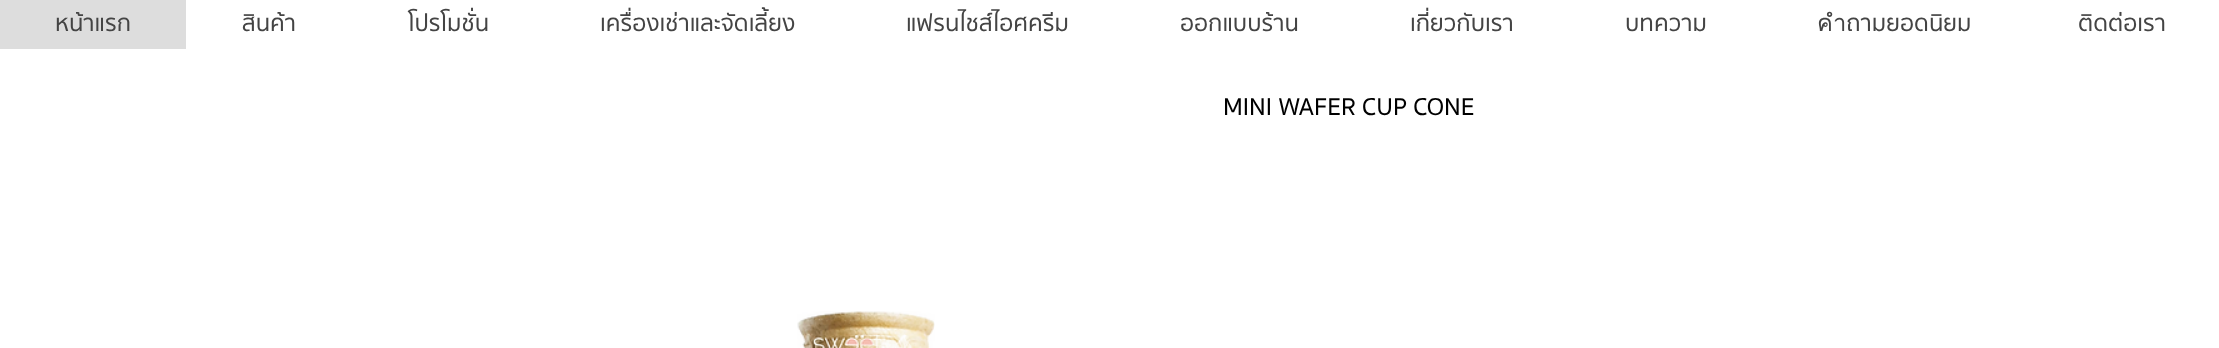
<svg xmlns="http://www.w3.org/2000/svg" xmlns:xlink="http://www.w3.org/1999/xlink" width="2219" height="348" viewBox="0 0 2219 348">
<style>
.cls-1{font:500 23.75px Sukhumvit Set;fill:#444444}
.cls-2{font:500 25px Sukhumvit Set;fill:#000000}
</style>
<rect width="100%" height="100%" fill="#ffffff"/>
<rect fill="#dddddd" x="0" y="0" width="186" height="49"/>
<image xlink:href="image0.png" x="797" y="311" width="138" height="37"/>
<text class="cls-1" x="55" y="31">หน้าแรก</text>
<text class="cls-1" x="242" y="31">สินค้า</text>
<text class="cls-1" x="408" y="31">โปรโมชั่น</text>
<text class="cls-1" x="600" y="31">เครื่องเช่าและจัดเลี้ยง</text>
<text class="cls-1" x="906" y="31">แฟรนไชส์ไอศครีม</text>
<text class="cls-1" x="1180" y="31">ออกแบบร้าน</text>
<text class="cls-1" x="1410" y="31">เกี่ยวกับเรา</text>
<text class="cls-1" x="1625" y="31">บทความ</text>
<text class="cls-1" x="1817" y="31">คำถามยอดนิยม</text>
<text class="cls-1" x="2078" y="31">ติดต่อเรา</text>
<text class="cls-2" x="1223" y="115">MINI WAFER CUP CONE</text>
</svg>
